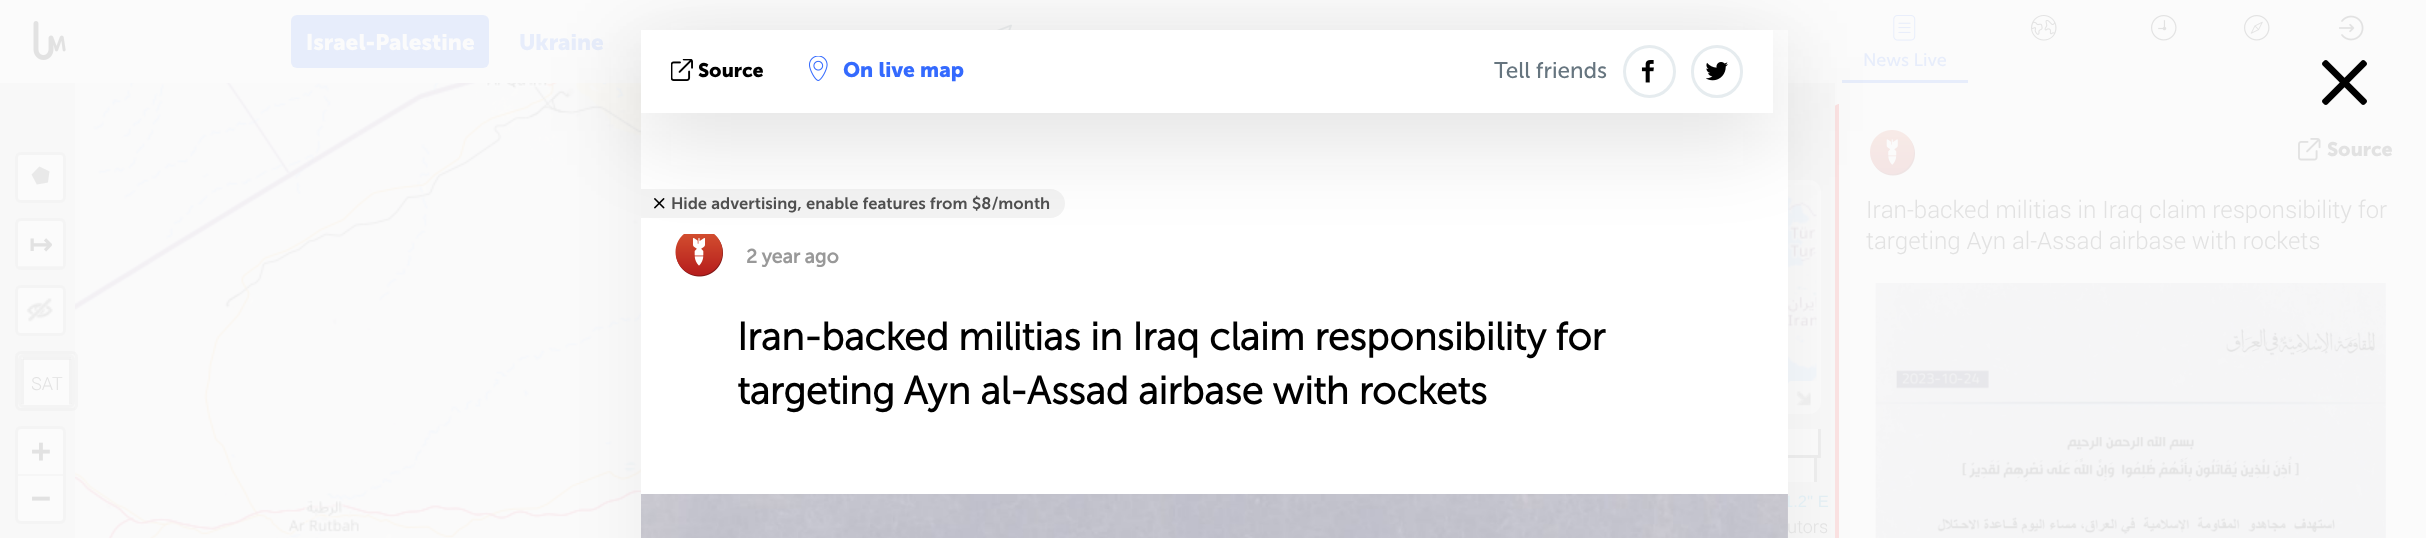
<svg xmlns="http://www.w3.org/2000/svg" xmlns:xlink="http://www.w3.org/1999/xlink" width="2426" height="538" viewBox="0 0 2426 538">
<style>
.cls-1{font:bold 22.5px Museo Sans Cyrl;fill:#fbfbfb}
.cls-2{font:bold 22.5px Museo Sans Cyrl;fill:#e7edfb}
.cls-3{font:18px Museo Sans Cyrl;fill:#e7edfb}
.cls-4{font:bold 19.5px Museo Sans Cyrl;fill:#e2e2e2}
.cls-5{font:300 24px Roboto;fill:#e2e2e2}
.cls-6{font:bold 28px DejaVu Sans;fill:#e2e2e2}
.cls-7{font:300 18px Roboto;fill:#e2e2e2}
.cls-8{font:bold 33px DejaVu Sans Mono;fill:#e2e2e2}
.cls-9{font:16.5px Liberation Sans;fill:#e2eef3}
.cls-10{font:600 16.5px Museo Sans Cyrl;fill:#505050}
.cls-11{font:22.5px Museo Sans Cyrl;fill:#66757f}
.cls-12{font:bold 21px Museo Sans Cyrl;fill:#346afe}
.cls-13{font:bold 19.5px Museo Sans Cyrl;fill:#000000}
.cls-14{font:bold 19.5px 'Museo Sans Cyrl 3';fill:#999999}
.cls-15{font:bold 39px 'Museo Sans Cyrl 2';fill:#000000}
</style>
<defs>
<clipPath id="clip1"><rect x="1835" y="83" width="588" height="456"/></clipPath>
</defs>
<rect width="100%" height="100%" fill="#f8f8f8"/>
<rect fill="#fbfbfb" x="0" y="0" width="1835" height="83"/>
<image xlink:href="image0.png" x="33" y="21" width="33" height="39"/>
<image xlink:href="image1.png" x="997" y="24" width="15" height="6"/>
<rect fill="#e7edfb" x="291" y="15" width="198" height="53" rx="6"/>
<rect fill="#fbfbfb" x="1835" y="0" width="591" height="538"/>
<image xlink:href="image2.png" x="2031" y="15" width="26" height="26"/>
<image xlink:href="image3.png" x="2151" y="15" width="26" height="26"/>
<image xlink:href="image4.png" x="2244" y="15" width="26" height="26"/>
<image xlink:href="image5.png" x="2339" y="15" width="25" height="26"/>
<rect fill="#e7edfb" x="1842" y="80" width="126" height="3"/>
<image xlink:href="image6.png" x="1893" y="15" width="23" height="26"/>
<g clip-path="url(#clip1)">
<path fill="#fbe2e2" d="M1839 104V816L1836 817L1834 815V107C1835 105 1838 104 1839 104Z"/>
</g>
<image xlink:href="image7.png" x="1870" y="130" width="45" height="46"/>
<image xlink:href="image8.png" x="2298" y="138" width="23" height="23"/>
<image xlink:href="image9.png" x="1875" y="283" width="511" height="255"/>
<rect fill="#fbfbfb" x="1788" y="458" width="26" height="24"/>
<image xlink:href="image10.png" x="75" y="83" width="384" height="16"/>
<image xlink:href="image11.png" x="459" y="83" width="182" height="16"/>
<image xlink:href="image12.png" x="75" y="99" width="384" height="384"/>
<image xlink:href="image13.png" x="459" y="99" width="182" height="384"/>
<image xlink:href="image14.png" x="75" y="483" width="384" height="55"/>
<image xlink:href="image15.png" x="459" y="483" width="182" height="55"/>
<rect fill="none" stroke="#f4f4f4" stroke-width="3" x="16.5" y="153.5" width="48" height="48" rx="4.5"/>
<rect fill="#fbfbfb" x="18" y="155" width="45" height="45" rx="3"/>
<image xlink:href="image16.png" x="31" y="166" width="19" height="19"/>
<rect fill="none" stroke="#f4f4f4" stroke-width="3" x="16.5" y="219.5" width="48" height="49" rx="4.5"/>
<path fill="#fbfbfb" d="M21 221H60C61.5 221 63 222.5 63 224V267H18V224C18 222.5 19.5 221 21 221Z"/>
<rect fill="#f6f6f6" x="18" y="266" width="45" height="1"/>
<rect fill="none" stroke="#f4f4f4" stroke-width="3" x="16.5" y="286.5" width="48" height="48" rx="4.5"/>
<rect fill="#fbfbfb" x="18" y="288" width="45" height="45" rx="3"/>
<image xlink:href="image17.png" x="26" y="298" width="27" height="24"/>
<rect fill="none" stroke="#e2e2e2" stroke-opacity="0.2" stroke-width="3" x="16.5" y="352.5" width="60" height="57" rx="4.5"/>
<rect fill="none" stroke="#f4f4f4" stroke-width="3" x="19.5" y="355.5" width="54" height="51" rx="4.5"/>
<path fill="#fbfbfb" d="M24 360H69V405H24V402Z"/>
<rect fill="#e2e2e2" fill-opacity="0.2" x="23" y="357" width="48" height="3"/>
<rect fill="#e2e2e2" fill-opacity="0.2" x="69" y="359" width="3" height="45"/>
<rect fill="#e2e2e2" fill-opacity="0.2" x="21" y="359" width="3" height="45"/>
<rect fill="none" stroke="#f4f4f4" stroke-width="3" x="16.5" y="427.5" width="48" height="95" rx="4.5"/>
<path fill="#fbfbfb" d="M21 429H60C61.5 429 63 430.5 63 432V476H18V432C18 430.5 19.5 429 21 429Z"/>
<rect fill="#f6f6f6" x="18" y="474" width="45" height="2"/>
<path fill="#fbfbfb" d="M18 476H63V518C63 519.5 61.5 521 60 521H21C19.5 521 18 519.5 18 518Z"/>
<rect fill="none" stroke="#fbfbfb" stroke-width="5" x="1589.5" y="182.5" width="229" height="229" rx="9.5"/>
<image xlink:href="image18.png" x="1788" y="185" width="29" height="35"/>
<image xlink:href="image19.png" x="1788" y="219" width="29" height="191"/>
<path fill="#fbfbfb" d="M1791 381H1817V402C1817 406.5 1813.5 410 1809 410H1788V384C1788 382.5 1789.5 381 1791 381Z"/>
<image xlink:href="image20.png" x="1796" y="391" width="15" height="15"/>
<rect fill="#fbfbfb" x="1788" y="429" width="30" height="26"/>
<rect fill="#eeeeee" x="1818" y="429" width="3" height="29"/>
<rect fill="#eeeeee" x="1788" y="455" width="33" height="3"/>
<rect fill="#eeeeee" x="1814" y="455" width="3" height="27"/>
<rect fill="#000000" fill-opacity="0.05" filter="blur(37.5px)" x="641" y="68" width="1147" height="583"/>
<image xlink:href="image25.png" x="2322" y="60" width="45" height="45"/>
<text class="cls-1" x="306" y="50">Israel-Palestine</text>
<text class="cls-2" x="519" y="50">Ukraine</text>
<text class="cls-3" x="1863" y="66">News Live</text>
<text class="cls-4" x="2327" y="156">Source</text>
<text class="cls-5"><tspan x="1866" y="218">Iran-backed militias in Iraq claim responsibility for</tspan><tspan x="1866" y="249">targeting Ayn al-Assad airbase with rockets</tspan></text>
<text class="cls-6" x="29" y="254">↦</text>
<text class="cls-7" x="31" y="390">SAT</text>
<text class="cls-8"><tspan x="31" y="462">+</tspan><tspan x="31" y="509">−</tspan></text>
<text class="cls-9" x="1784" y="507">1.2'' E</text>
<text class="cls-7" x="1787" y="533">utors</text>
<rect fill="#ffffff" x="641" y="30" width="1147" height="508"/>
<path fill="#f3f3f3" d="M641 189H1050.5C1058.5 189 1065 195.5 1065 203.5C1065 211.5 1058.5 218 1050.5 218H641Z"/>
<image xlink:href="image26.png" x="654" y="198" width="11" height="11"/>
<text class="cls-10" x="671" y="209">Hide advertising, enable features from $8/month</text>
<image xlink:href="image27.png" x="675" y="234" width="48" height="43"/>
<rect fill="#100f0f" fill-opacity="0.14" filter="blur(45px)" x="641" y="53" width="1132" height="82"/>
<rect fill="#ffffff" x="641" y="30" width="1132" height="83"/>
<image xlink:href="image24.png" x="1706" y="62" width="22" height="19"/>
<rect fill="none" stroke="#e6ecef" stroke-width="3" x="1692.5" y="46.5" width="49" height="50" rx="24.5"/>
<image xlink:href="image23.png" x="1641" y="60" width="13" height="23"/>
<circle fill="none" stroke="#e6ecef" stroke-width="3" cx="1649.5" cy="71.5" r="25"/>
<text class="cls-11" x="1494" y="78">Tell friends</text>
<image xlink:href="image22.png" x="809" y="56" width="19" height="25"/>
<image xlink:href="image21.png" x="671" y="59" width="22" height="22"/>
<text class="cls-12" x="843" y="77">On live map</text>
<text class="cls-13" x="698" y="77">Source</text>
<text class="cls-14" x="746" y="263">2 year ago</text>
<text class="cls-15"><tspan x="737" y="350">Iran-backed militias in Iraq claim responsibility for</tspan><tspan x="737" y="404">targeting Ayn al-Assad airbase with rockets</tspan></text>
<image xlink:href="image28.png" x="641" y="494" width="1147" height="44"/>
</svg>
